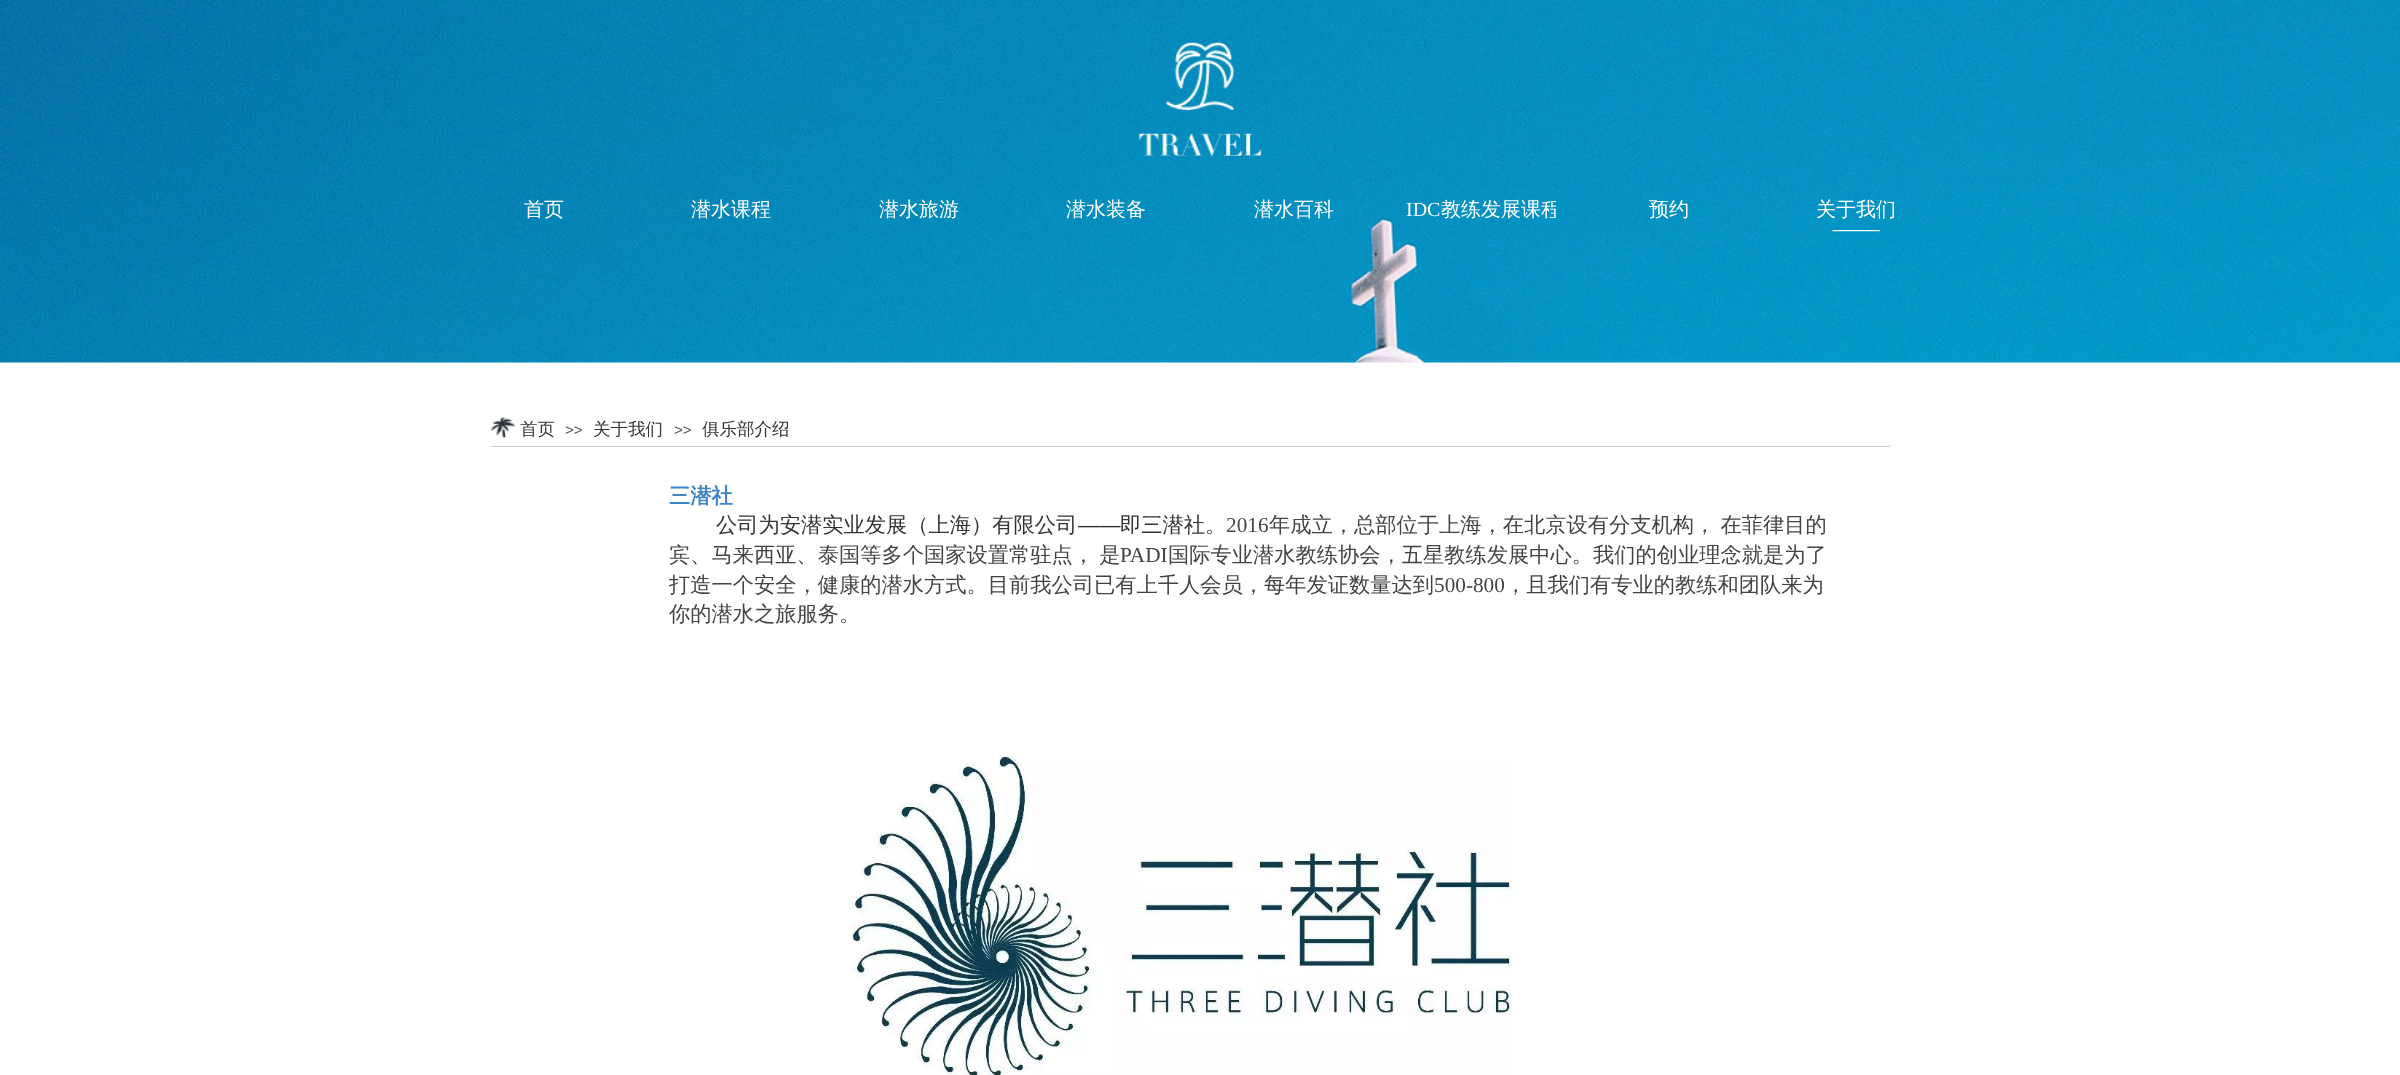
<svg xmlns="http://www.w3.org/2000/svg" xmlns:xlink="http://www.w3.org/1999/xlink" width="2400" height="1075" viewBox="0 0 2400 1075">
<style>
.cls-1{font:500 20px WenQuanYi Zen Hei;fill:#ffffff}
.cls-2{font:20px Liberation Serif;fill:#ffffff}
.cls-3{font:500 17.5px WenQuanYi Zen Hei;fill:#333333}
.cls-4{font:15px Liberation Sans;fill:#5a5a5a}
.cls-5{font:bold 21.25px WenQuanYi Zen Hei;fill:#3d85c6}
.cls-6{font:500 21.25px WenQuanYi Zen Hei;fill:#333333}
.cls-7{font:21.25px Liberation Sans;fill:#333333}
.cls-8{font:21.25px Liberation Serif;fill:#434343}
.cls-9{font:500 21.25px WenQuanYi Zen Hei;fill:#434343}
</style>
<defs>
<clipPath id="clip1"><rect x="1406" y="188" width="150" height="43"/></clipPath>
</defs>
<rect width="100%" height="100%" fill="#ffffff"/>
<image xlink:href="image0.png" x="0" y="0" width="2400" height="363"/>
<image xlink:href="image1.png" x="1166" y="42" width="68" height="68"/>
<image xlink:href="image2.png" x="1138" y="133" width="124" height="24"/>
<image xlink:href="image3.png" x="1832" y="230" width="48" height="2"/>
<image xlink:href="image4.png" x="491" y="417" width="24" height="21"/>
<rect fill="#cccccc" x="491" y="446" width="1400" height="1"/>
<image xlink:href="image5.png" x="851" y="756" width="661" height="319"/>
<text class="cls-1" x="524" y="216">首页</text>
<text class="cls-1" x="691" y="216">潜水课程</text>
<text class="cls-1" x="879" y="216">潜水旅游</text>
<text class="cls-1" x="1066" y="216">潜水装备</text>
<text class="cls-1" x="1254" y="216">潜水百科</text>
<text class="cls-2" x="1406" y="216">IDC</text>
<g clip-path="url(#clip1)">
<text class="cls-1" x="1441" y="216">教练发展课程</text>
</g>
<text class="cls-1" x="1649" y="216">预约</text>
<text class="cls-1" x="1816" y="216">关于我们</text>
<text class="cls-3" x="520" y="435">首页</text>
<text class="cls-4" x="565" y="435">&gt;&gt;</text>
<text class="cls-3" x="593" y="435">关于我们</text>
<text class="cls-4" x="674" y="435">&gt;&gt;</text>
<text class="cls-3" x="702" y="435">俱乐部介绍</text>
<text class="cls-5" x="669" y="503">三潜社</text>
<text class="cls-6" x="716" y="532">公司为安潜实业发展（上海）有限公司</text>
<text class="cls-7" x="1078" y="532">——</text>
<text class="cls-6" x="1120" y="532">即三潜社。</text>
<text class="cls-8" x="1226" y="532">2016</text>
<text class="cls-9" x="1269" y="532" word-spacing="-1">年成立，总部位于上海，在北京设有分支机构， 在菲律目的</text>
<text class="cls-9" x="669" y="562" word-spacing="-1">宾、马来西亚、泰国等多个国家设置常驻点， 是</text>
<text class="cls-8" x="1120" y="562">PADI</text>
<text class="cls-9" x="1168" y="562">国际专业潜水教练协会，五星教练发展中心。我们的创业理念就是为了</text>
<text class="cls-9" x="669" y="592">打造一个安全，健康的潜水方式。目前我公司已有上千人会员，每年发证数量达到</text>
<text class="cls-8" x="1434" y="592">500-800</text>
<text class="cls-9" x="1505" y="592">，且我们有专业的教练和团队来为</text>
<text class="cls-9" x="669" y="621">你的潜水之旅服务。</text>
</svg>
